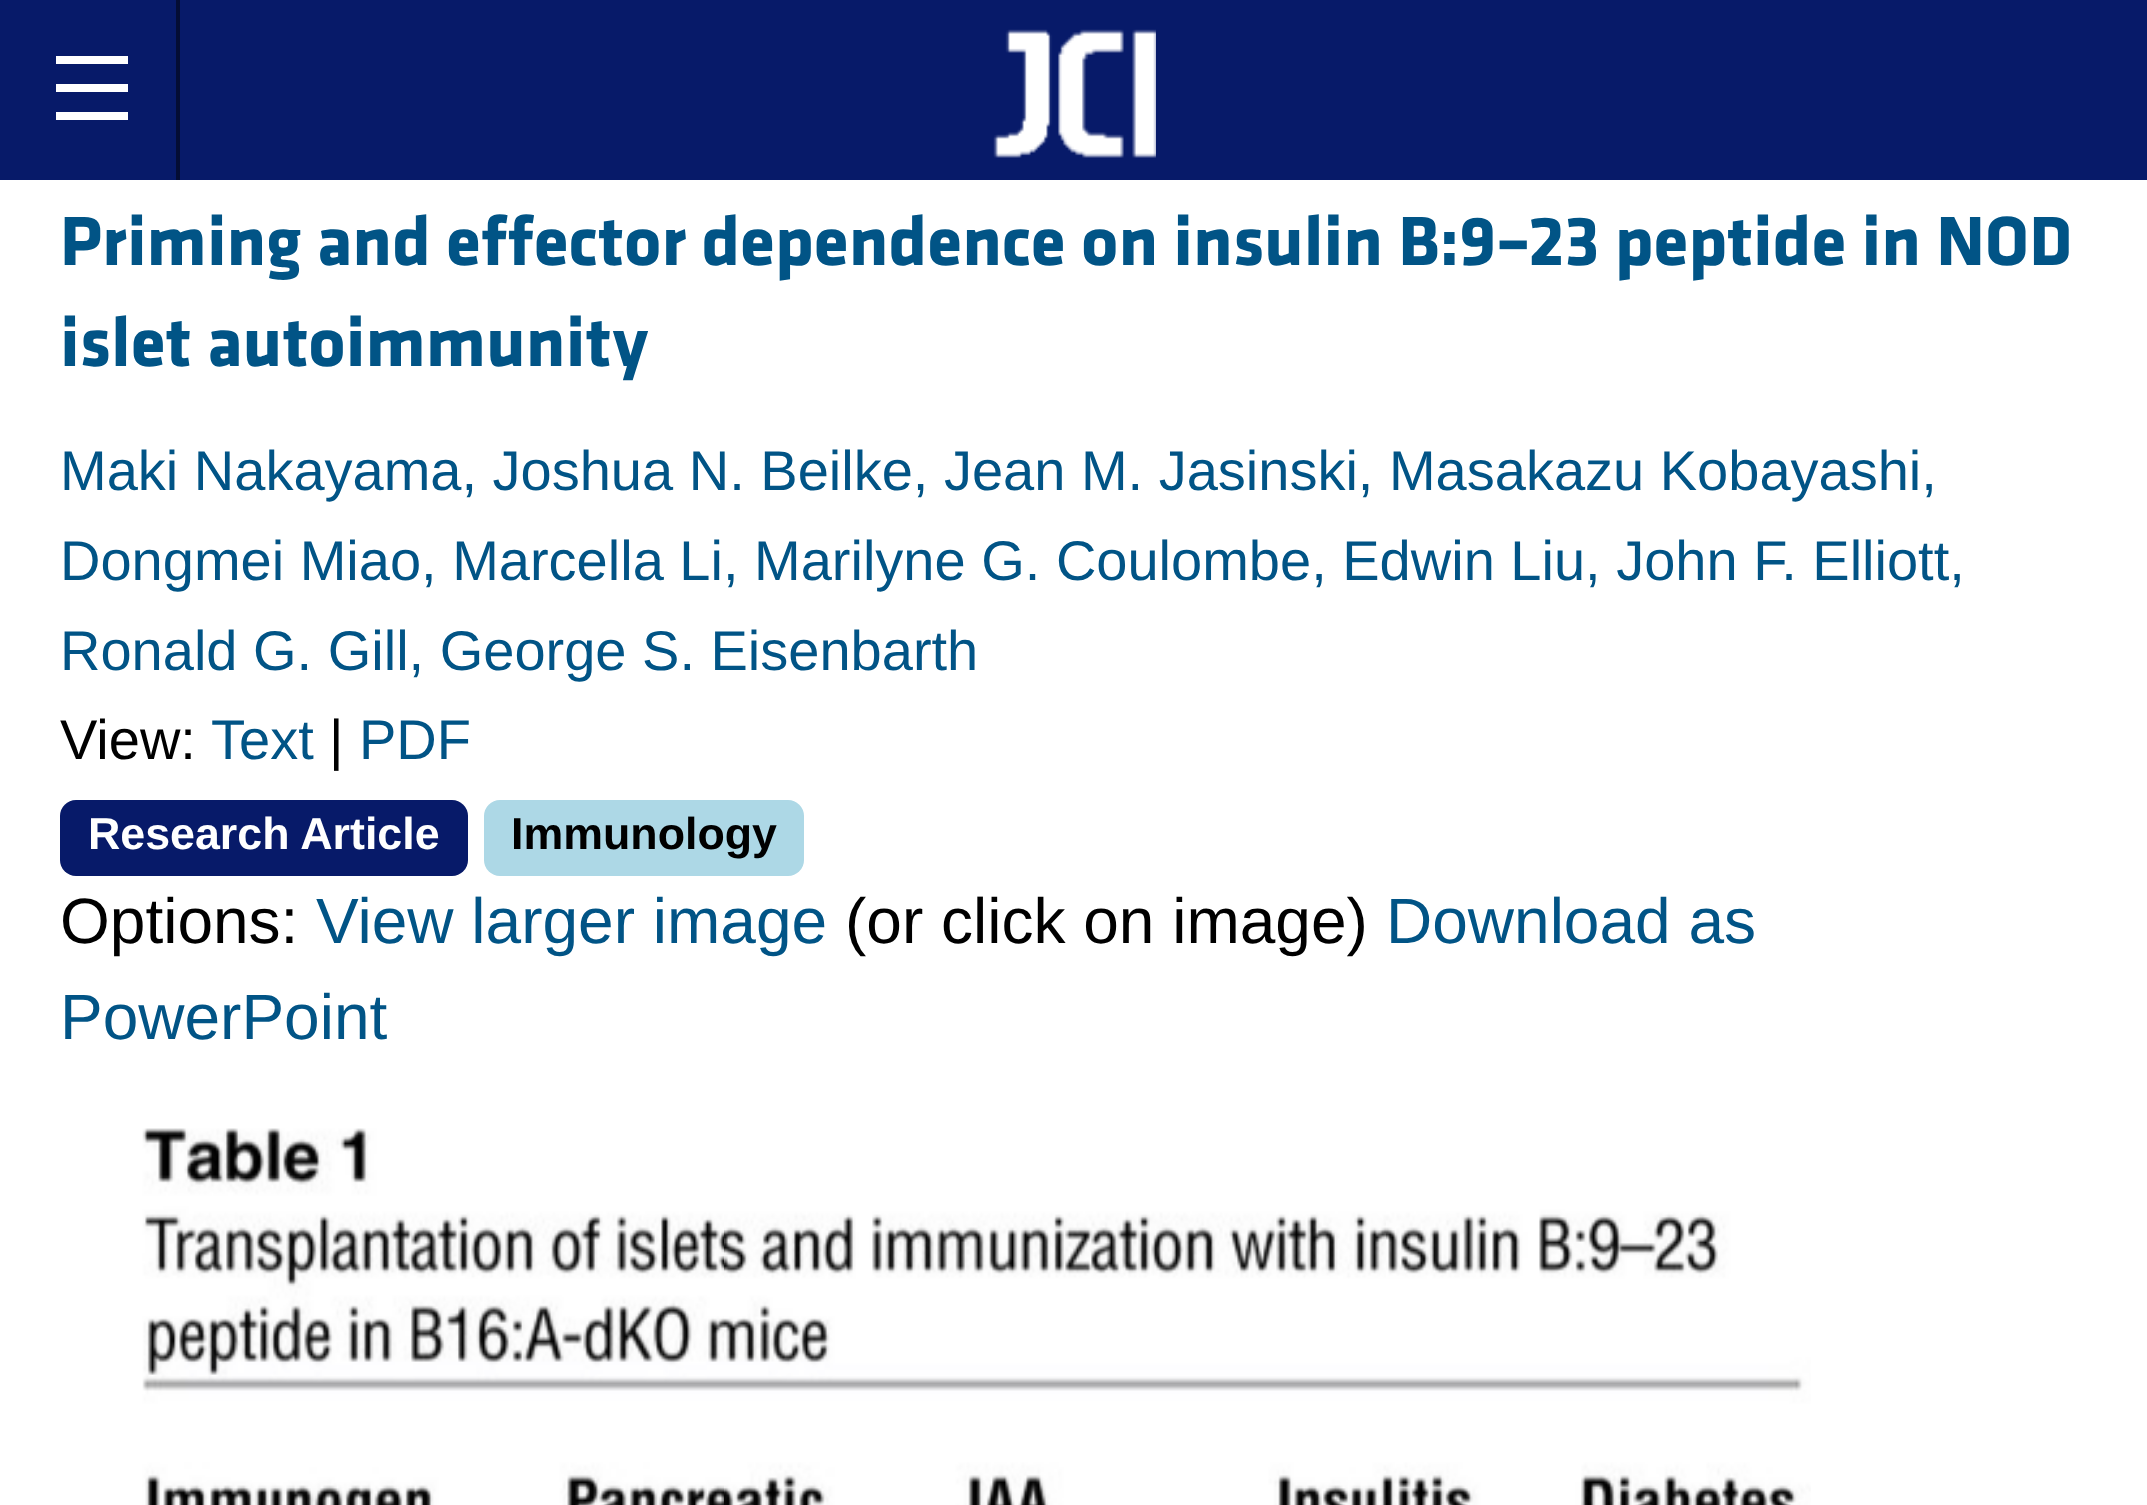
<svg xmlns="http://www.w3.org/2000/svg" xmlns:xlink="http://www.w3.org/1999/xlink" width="2147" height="1505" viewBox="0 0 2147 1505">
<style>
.cls-1{font:bold 72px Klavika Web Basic;fill:#015486}
.cls-2{font:56px Liberation Sans;fill:#015486}
.cls-3{font:56px Liberation Sans;fill:#000000}
.cls-4{font:bold 44.75px Liberation Sans;fill:#ffffff}
.cls-5{font:bold 44.75px Liberation Sans;fill:#000000}
.cls-6{font:64px Liberation Sans;fill:#000000}
.cls-7{font:64px Liberation Sans;fill:#015486}
</style>
<rect width="100%" height="100%" fill="#ffffff"/>
<rect fill="#071a69" x="0" y="0" width="2147" height="180"/>
<rect fill="#040d35" x="176" y="0" width="4" height="180"/>
<rect fill="#ffffff" x="56" y="112" width="72" height="8"/>
<rect fill="#ffffff" x="56" y="84" width="72" height="8"/>
<rect fill="#ffffff" x="56" y="56" width="72" height="8"/>
<image xlink:href="image0.png" x="993" y="29" width="163" height="129"/>
<rect fill="#071a69" x="60" y="800" width="408" height="76" rx="16"/>
<rect fill="#add8e6" x="484" y="800" width="320" height="76" rx="16"/>
<image xlink:href="image1.png" x="142" y="1128" width="1669" height="377"/>
<text class="cls-1"><tspan x="60" y="265">Priming and effector dependence on insulin B:9–23 peptide in NOD</tspan><tspan x="60" y="366">islet autoimmunity</tspan></text>
<text class="cls-2"><tspan x="60" y="490">Maki Nakayama, Joshua N. Beilke, Jean M. Jasinski, Masakazu Kobayashi,</tspan><tspan x="60" y="580">Dongmei Miao, Marcella Li, Marilyne G. Coulombe, Edwin Liu, John F. Elliott,</tspan><tspan x="60" y="670">Ronald G. Gill, George S. Eisenbarth</tspan></text>
<text class="cls-3" x="60" y="759">View:</text>
<text class="cls-2" x="211" y="759">Text</text>
<text class="cls-3" x="329" y="759">|</text>
<text class="cls-2" x="359" y="759">PDF</text>
<text class="cls-4" x="88" y="849">Research Article</text>
<text class="cls-5" x="511" y="849">Immunology</text>
<text class="cls-6" x="60" y="943">Options:</text>
<text class="cls-7" x="316" y="943">View larger image</text>
<text class="cls-6" x="845" y="943">(or click on image)</text>
<text class="cls-7" x="1386" y="943">Download as</text>
<text class="cls-7" x="60" y="1039">PowerPoint</text>
</svg>
